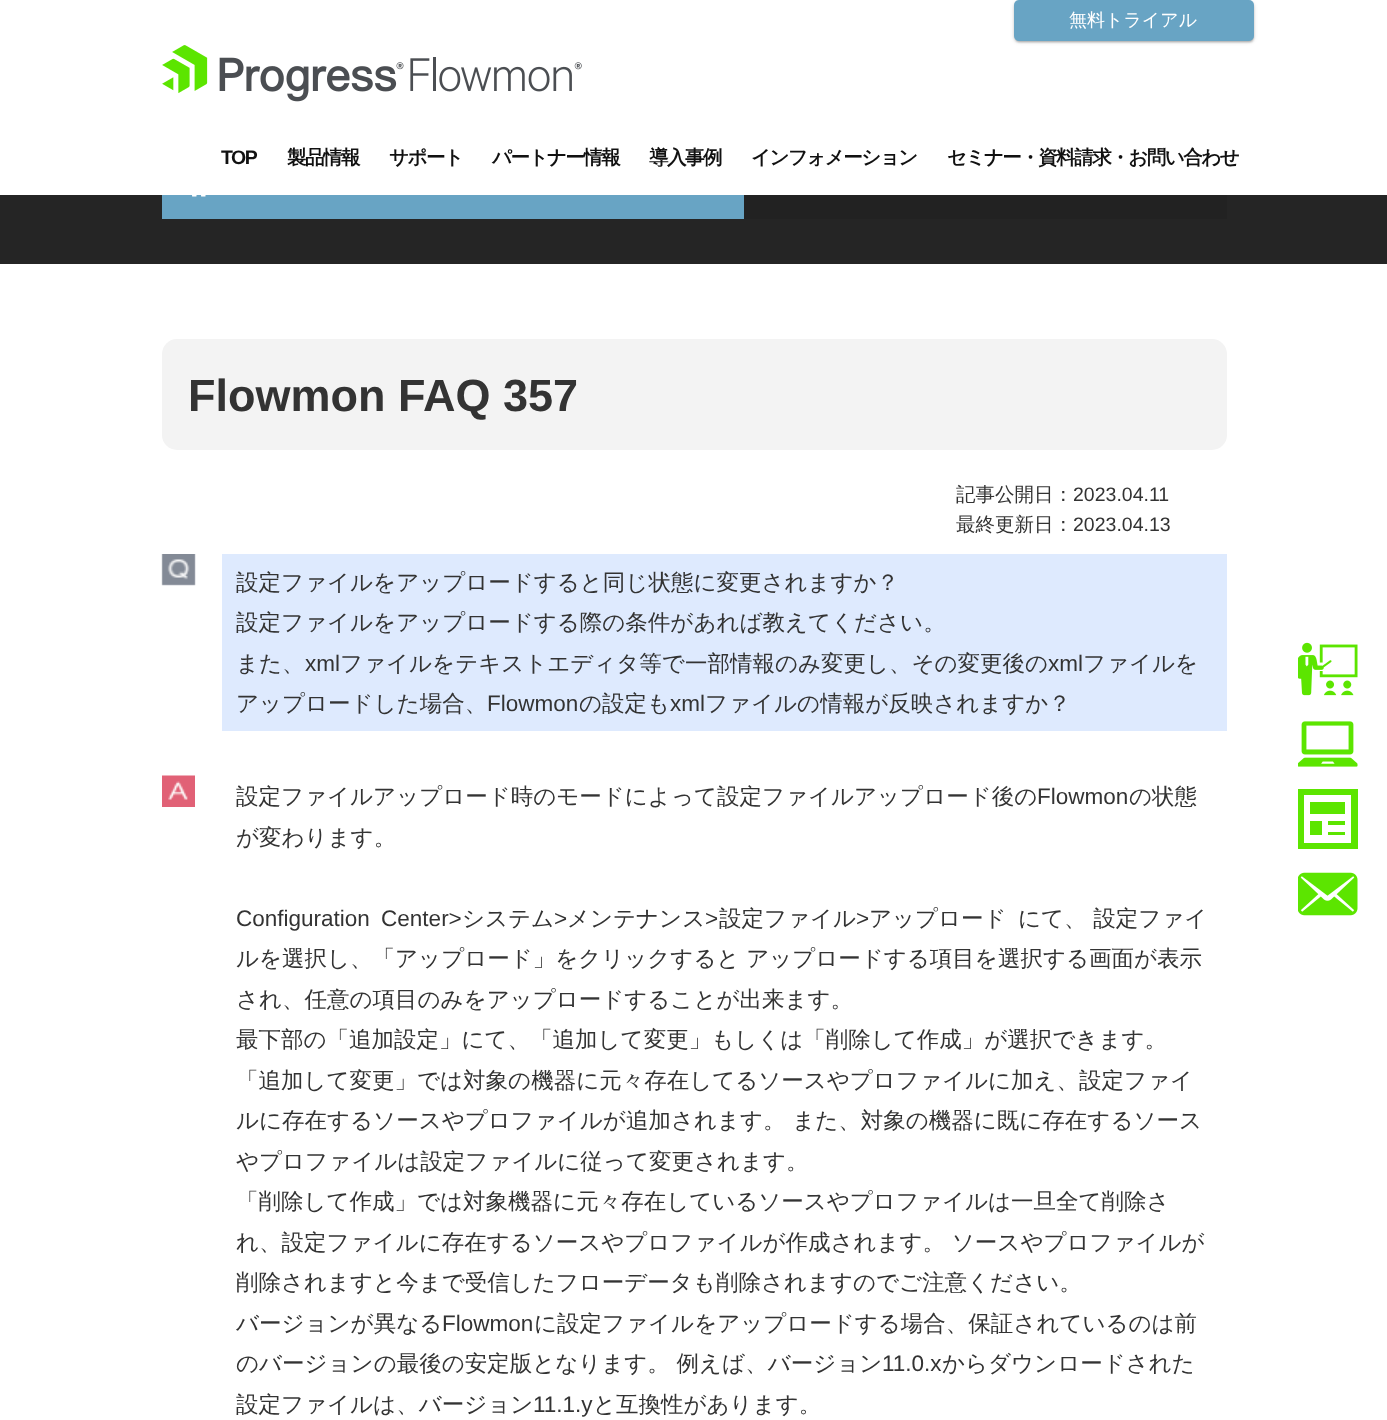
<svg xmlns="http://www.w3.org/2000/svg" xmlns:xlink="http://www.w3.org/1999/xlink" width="1387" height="1420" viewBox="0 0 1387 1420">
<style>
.cls-1{font:500 18px WenQuanYi Zen Hei;fill:#ffffff}
.cls-2{font:bold 19.5px Liberation Sans;letter-spacing:-1.5px;fill:#111111}
.cls-3{font:bold 19.5px WenQuanYi Zen Hei;letter-spacing:-1.5px;fill:#111111}
.cls-4{font:bold 45px Liberation Sans;fill:#333333}
.cls-5{font:500 19.5px WenQuanYi Zen Hei;fill:#333333}
.cls-6{font:19.5px Liberation Sans;fill:#333333}
.cls-7{font:500 22.5px WenQuanYi Zen Hei;fill:#333333}
.cls-8{font:22.5px Liberation Sans;fill:#333333}
</style>
<rect width="100%" height="100%" fill="#ffffff"/>
<rect fill="#000000" fill-opacity="0.2" filter="blur(1px)" x="1016" y="5" width="237" height="37" rx="3"/>
<rect fill="#000000" fill-opacity="0.12" filter="blur(2px)" x="1014" y="2" width="240" height="40" rx="5"/>
<rect fill="#000000" fill-opacity="0.12" filter="blur(1px)" x="1014" y="2" width="240" height="40" rx="5"/>
<rect fill="#68a4c4" x="1014" y="0" width="240" height="41" rx="5"/>
<image xlink:href="image0.png" x="162" y="45" width="420" height="57"/>
<image xlink:href="image1.png" x="1298" y="642" width="60" height="54"/>
<image xlink:href="image2.png" x="1298" y="721" width="60" height="46"/>
<rect fill="#5ce500" x="1310" y="802" width="35" height="12"/>
<path fill="#5ce500" d="M1298 789V849H1358V789ZM1351 843H1304V795H1351Z"/>
<rect fill="#5ce500" x="1310" y="821" width="12" height="14"/>
<rect fill="#5ce500" x="1328" y="821" width="17" height="4"/>
<rect fill="#5ce500" x="1328" y="832" width="17" height="3"/>
<image xlink:href="image3.png" x="1298" y="872" width="60" height="44"/>
<rect fill="#252525" x="0" y="195" width="1387" height="69"/>
<rect fill="#222222" x="744" y="195" width="483" height="24"/>
<rect fill="#68a4c4" x="162" y="195" width="582" height="24"/>
<image xlink:href="image4.png" x="192" y="195" width="14" height="2"/>
<rect fill="#f3f3f3" x="162" y="339" width="1065" height="111" rx="15"/>
<image xlink:href="image5.png" x="161" y="554" width="35" height="32"/>
<rect fill="#deeafe" x="222" y="554" width="1005" height="177"/>
<image xlink:href="image6.png" x="162" y="775" width="33" height="32"/>
<text class="cls-1" x="1069" y="26">無料トライアル</text>
<text class="cls-2" x="221" y="164">TOP</text>
<text class="cls-3" x="287" y="164">製品情報</text>
<text class="cls-3" x="389" y="164">サポート</text>
<text class="cls-3" x="492" y="164">パートナー情報</text>
<text class="cls-3" x="649" y="164">導入事例</text>
<text class="cls-3" x="751" y="164">インフォメーション</text>
<text class="cls-3" x="947" y="164">セミナー・資料請求・お問い合わせ</text>
<text class="cls-4" x="188" y="411">Flowmon FAQ 357</text>
<text class="cls-5" x="956" y="501">記事公開日：</text>
<text class="cls-6" x="1073" y="501">2023.04.11</text>
<text class="cls-5" x="956" y="531">最終更新日：</text>
<text class="cls-6" x="1073" y="531">2023.04.13</text>
<text class="cls-7"><tspan x="236" y="590">設定ファイルをアップロードすると同じ状態に変更されますか？</tspan><tspan x="236" y="630">設定ファイルをアップロードする際の条件があれば教えてください。</tspan><tspan x="236" y="671">また、</tspan></text>
<text class="cls-8" x="305" y="671">xml</text>
<text class="cls-7" x="340" y="671">ファイルをテキストエディタ等で一部情報のみ変更し、その変更後の</text>
<text class="cls-8" x="1048" y="671">xml</text>
<text class="cls-7" x="1083" y="671">ファイルを</text>
<text class="cls-7" x="236" y="711">アップロードした場合、</text>
<text class="cls-8" x="487" y="711">Flowmon</text>
<text class="cls-7" x="579" y="711">の設定も</text>
<text class="cls-8" x="670" y="711">xml</text>
<text class="cls-7" x="705" y="711">ファイルの情報が反映されますか？</text>
<text class="cls-7" x="236" y="804">設定ファイルアップロード時のモードによって設定ファイルアップロード後の</text>
<text class="cls-8" x="1037" y="804">Flowmon</text>
<text class="cls-7" x="1129" y="804">の状態</text>
<text class="cls-7" x="236" y="845">が変わります。</text>
<text class="cls-8" x="236" y="926">Configuration Center&gt;</text>
<text class="cls-7" x="462" y="926">システム</text>
<text class="cls-8" x="554" y="926">&gt;</text>
<text class="cls-7" x="567" y="926">メンテナンス</text>
<text class="cls-8" x="705" y="926">&gt;</text>
<text class="cls-7" x="719" y="926">設定ファイル</text>
<text class="cls-8" x="856" y="926">&gt;</text>
<text class="cls-7" x="869" y="926">アップロード</text>
<text class="cls-7" x="1018" y="926">にて、 設定ファイ</text>
<text class="cls-7"><tspan x="236" y="966">ルを選択し、「アップロード」をクリックすると アップロードする項目を選択する画面が表示</tspan><tspan x="236" y="1007">され、任意の項目のみをアップロードすることが出来ます。</tspan><tspan x="236" y="1047">最下部の「追加設定」にて、「追加して変更」もしくは「削除して作成」が選択できます。</tspan><tspan x="236" y="1088">「追加して変更」では対象の機器に元々存在してるソースやプロファイルに加え、設定ファイ</tspan><tspan x="236" y="1128">ルに存在するソースやプロファイルが追加されます。 また、対象の機器に既に存在するソース</tspan><tspan x="236" y="1169">やプロファイルは設定ファイルに従って変更されます。</tspan><tspan x="236" y="1209">「削除して作成」では対象機器に元々存在しているソースやプロファイルは一旦全て削除さ</tspan><tspan x="236" y="1250">れ、設定ファイルに存在するソースやプロファイルが作成されます。 ソースやプロファイルが</tspan><tspan x="236" y="1290">削除されますと今まで受信したフローデータも削除されますのでご注意ください。</tspan><tspan x="236" y="1331">バージョンが異なる</tspan></text>
<text class="cls-8" x="442" y="1331">Flowmon</text>
<text class="cls-7" x="534" y="1331">に設定ファイルをアップロードする場合、保証されているのは前</text>
<text class="cls-7" x="236" y="1371">のバージョンの最後の安定版となります。 例えば、バージョン</text>
<text class="cls-8" x="882" y="1371">11.0.x</text>
<text class="cls-7" x="942" y="1371">からダウンロードされた</text>
<text class="cls-7" x="236" y="1412">設定ファイルは、バージョン</text>
<text class="cls-8" x="533" y="1412">11.1.y</text>
<text class="cls-7" x="593" y="1412">と互換性があります。</text>
</svg>
